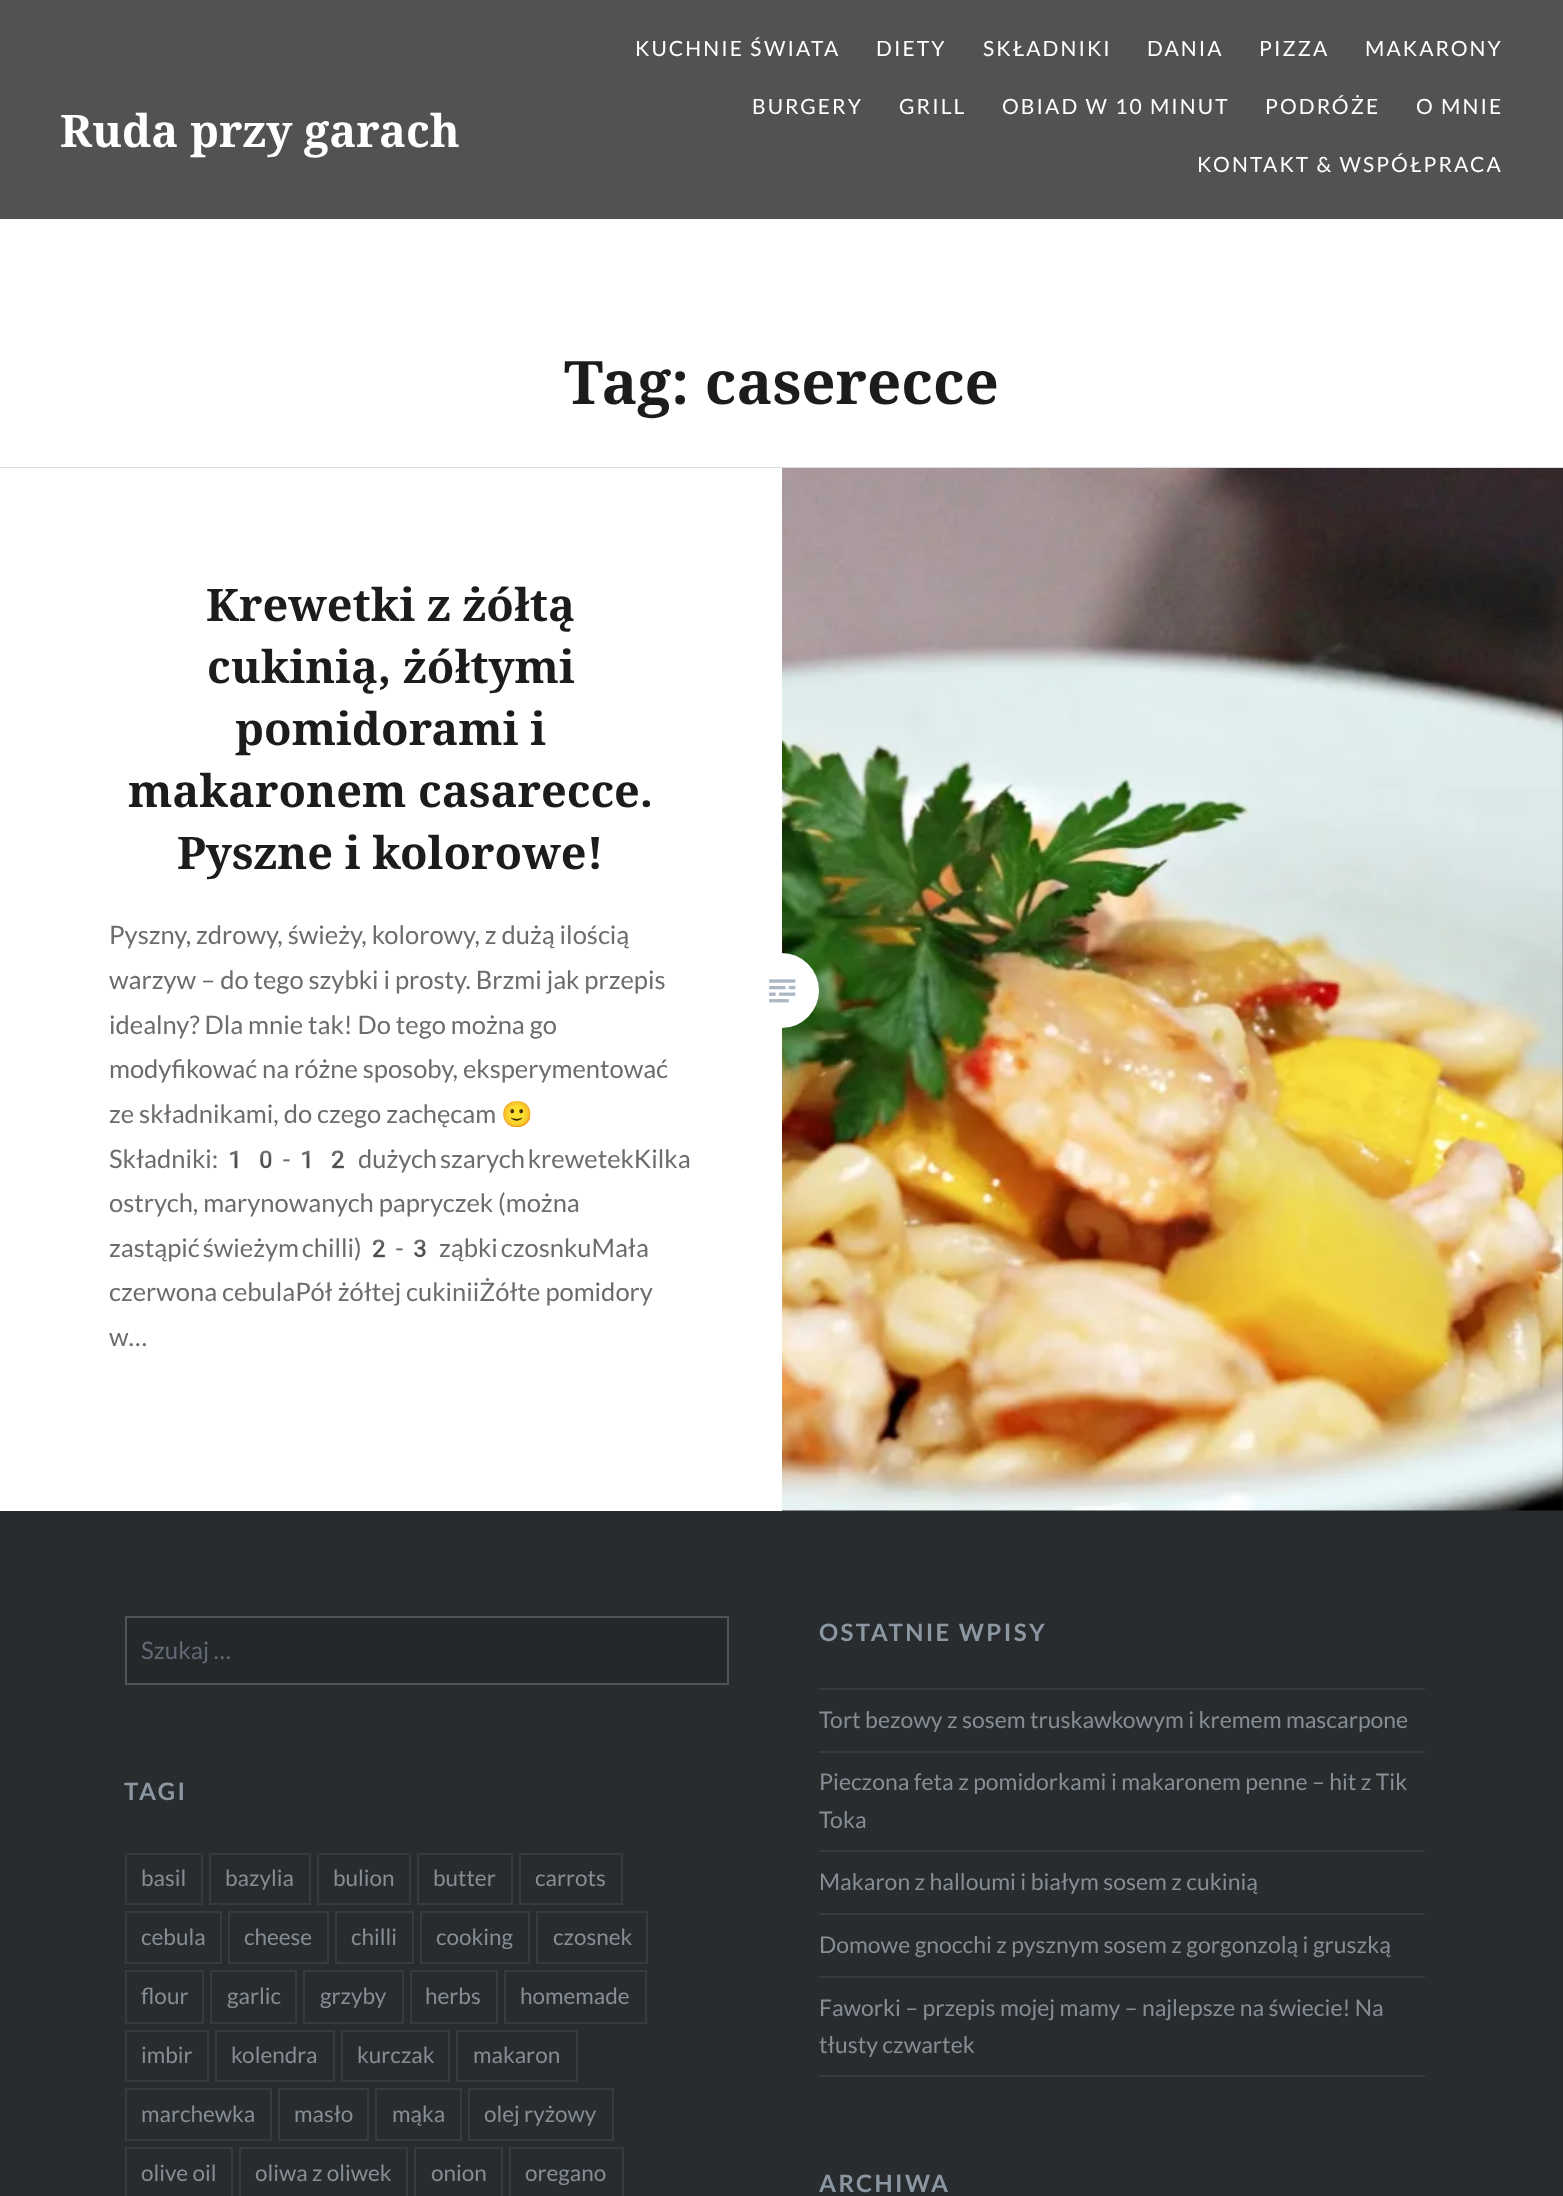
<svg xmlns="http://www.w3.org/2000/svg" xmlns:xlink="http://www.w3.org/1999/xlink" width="1563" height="2196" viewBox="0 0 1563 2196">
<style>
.cls-1{font:bold 45px Noto Serif;fill:#ffffff}
.cls-2{font:21px Lato;letter-spacing:2.1px;fill:#ffffff}
.cls-3{font:bold 60px Noto Serif;fill:#1a1c1e}
.cls-4{font:bold 45px Noto Serif;fill:#1a1c1e}
.cls-5{font:25.5px Lato;fill:#6a6c6e}
.cls-6{font:25.5px Noto Color Emoji;fill:#6a6c6e}
.cls-7{font:24px Lato;fill:#616a74}
.cls-8{font:bold 24px Lato;letter-spacing:2.4px;fill:#8c97a2}
.cls-9{font:22.95px Lato;fill:#858d95}
.cls-10{font:22.5px Lato;fill:#858d95}
</style>
<rect width="100%" height="100%" fill="#ffffff"/>
<rect fill="#505254" x="0" y="0" width="1563" height="219"/>
<rect fill="#d9dfe5" x="0" y="467" width="1563" height="1"/>
<rect fill="#242629" x="782" y="468" width="781" height="1043"/>
<image xlink:href="image1.png" x="782" y="468" width="781" height="1043"/>
<circle fill="#ffffff" cx="781.5" cy="990.5" r="37.5"/>
<image xlink:href="image0.png" x="769" y="979" width="27" height="24"/>
<rect fill="#292c2f" x="0" y="1511" width="1563" height="685"/>
<rect fill="#25282a" stroke="#4d545b" stroke-width="2" x="126" y="1617" width="602" height="67"/>
<rect fill="#363b40" x="819" y="1688" width="606" height="2"/>
<rect fill="#363b40" x="819" y="1751" width="606" height="2"/>
<rect fill="#363b40" x="819" y="1850" width="606" height="2"/>
<rect fill="#363b40" x="819" y="1913" width="606" height="2"/>
<rect fill="#363b40" x="819" y="1976" width="606" height="2"/>
<rect fill="#363b40" x="819" y="2075" width="606" height="2"/>
<rect fill="none" stroke="#363b40" stroke-width="2" x="126" y="1854" width="76" height="50"/>
<rect fill="none" stroke="#363b40" stroke-width="2" x="210" y="1854" width="100" height="50"/>
<rect fill="none" stroke="#363b40" stroke-width="2" x="318" y="1854" width="92" height="50"/>
<rect fill="none" stroke="#363b40" stroke-width="2" x="418" y="1854" width="94" height="50"/>
<rect fill="none" stroke="#363b40" stroke-width="2" x="520" y="1854" width="102" height="50"/>
<rect fill="none" stroke="#363b40" stroke-width="2" x="126" y="1912" width="95" height="51"/>
<rect fill="none" stroke="#363b40" stroke-width="2" x="229" y="1912" width="99" height="51"/>
<rect fill="none" stroke="#363b40" stroke-width="2" x="336" y="1912" width="77" height="51"/>
<rect fill="none" stroke="#363b40" stroke-width="2" x="421" y="1912" width="108" height="51"/>
<rect fill="none" stroke="#363b40" stroke-width="2" x="537" y="1912" width="110" height="51"/>
<rect fill="none" stroke="#363b40" stroke-width="2" x="126" y="1971" width="77" height="52"/>
<rect fill="none" stroke="#363b40" stroke-width="2" x="211" y="1971" width="85" height="52"/>
<rect fill="none" stroke="#363b40" stroke-width="2" x="304" y="1971" width="99" height="52"/>
<rect fill="none" stroke="#363b40" stroke-width="2" x="411" y="1971" width="86" height="52"/>
<rect fill="none" stroke="#363b40" stroke-width="2" x="505" y="1971" width="141" height="52"/>
<rect fill="none" stroke="#363b40" stroke-width="2" x="126" y="2031" width="82" height="50"/>
<rect fill="none" stroke="#363b40" stroke-width="2" x="216" y="2031" width="118" height="50"/>
<rect fill="none" stroke="#363b40" stroke-width="2" x="342" y="2031" width="107" height="50"/>
<rect fill="none" stroke="#363b40" stroke-width="2" x="457" y="2031" width="120" height="50"/>
<rect fill="none" stroke="#363b40" stroke-width="2" x="126" y="2089" width="145" height="51"/>
<rect fill="none" stroke="#363b40" stroke-width="2" x="279" y="2089" width="89" height="51"/>
<rect fill="none" stroke="#363b40" stroke-width="2" x="376" y="2089" width="85" height="51"/>
<rect fill="none" stroke="#363b40" stroke-width="2" x="469" y="2089" width="144" height="51"/>
<rect fill="none" stroke="#363b40" stroke-width="2" x="126" y="2148" width="106" height="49"/>
<rect fill="none" stroke="#363b40" stroke-width="2" x="240" y="2148" width="167" height="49"/>
<rect fill="none" stroke="#363b40" stroke-width="2" x="415" y="2148" width="87" height="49"/>
<rect fill="none" stroke="#363b40" stroke-width="2" x="510" y="2148" width="113" height="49"/>
<text class="cls-1" x="60" y="147">Ruda przy garach</text>
<text class="cls-2" x="635" y="56">KUCHNIE ŚWIATA</text>
<text class="cls-2" x="876" y="56">DIETY</text>
<text class="cls-2" x="983" y="56">SKŁADNIKI</text>
<text class="cls-2" x="1147" y="56">DANIA</text>
<text class="cls-2" x="1259" y="56">PIZZA</text>
<text class="cls-2" x="1365" y="56">MAKARONY</text>
<text class="cls-2" x="752" y="114">BURGERY</text>
<text class="cls-2" x="899" y="114">GRILL</text>
<text class="cls-2" x="1002" y="114">OBIAD W 10 MINUT</text>
<text class="cls-2" x="1265" y="114">PODRÓŻE</text>
<text class="cls-2" x="1416" y="114">O MNIE</text>
<text class="cls-2" x="1197" y="172">KONTAKT &amp; WSPÓŁPRACA</text>
<text class="cls-3" x="564" y="404">Tag: caserecce</text>
<text class="cls-4" x="206" y="621">Krewetki z żółtą</text>
<text class="cls-4" x="207" y="683">cukinią, żółtymi</text>
<text class="cls-4" x="235" y="745">pomidorami i</text>
<text class="cls-4" x="128" y="807">makaronem casarecce.</text>
<text class="cls-4" x="177" y="869">Pyszne i kolorowe!</text>
<text class="cls-5"><tspan x="109" y="944">Pyszny, zdrowy, świeży, kolorowy, z dużą ilością</tspan><tspan x="109" y="989">warzyw – do tego szybki i prosty. Brzmi jak przepis</tspan><tspan x="109" y="1034">idealny? Dla mnie tak! Do tego można go</tspan><tspan x="109" y="1078">modyfikować na różne sposoby, eksperymentować</tspan><tspan x="109" y="1123">ze składnikami, do czego zachęcam</tspan></text>
<text class="cls-6" x="501" y="1123">🙂</text>
<text class="cls-5" x="109" y="1168">Składniki:</text>
<text class="cls-6" x="219" y="1168">10</text>
<text class="cls-5" x="282" y="1168">-</text>
<text class="cls-6" x="291" y="1168">12</text>
<text class="cls-5" x="358" y="1168" word-spacing="-2">dużych szarych krewetekKilka</text>
<text class="cls-5"><tspan x="109" y="1212">ostrych, marynowanych papryczek (można</tspan><tspan x="109" y="1257" word-spacing="-2">zastąpić świeżym chilli)</tspan></text>
<text class="cls-6" x="363" y="1257">2</text>
<text class="cls-5" x="395" y="1257">-</text>
<text class="cls-6" x="404" y="1257">3</text>
<text class="cls-5" x="439" y="1257" word-spacing="-2">ząbki czosnkuMała</text>
<text class="cls-5"><tspan x="109" y="1301">czerwona cebulaPół żółtej cukiniiŻółte pomidory</tspan><tspan x="109" y="1346">w…</tspan></text>
<text class="cls-7" x="141" y="1659">Szukaj …</text>
<text class="cls-8" x="819" y="1641">OSTATNIE WPISY</text>
<text class="cls-9" x="819" y="1728">Tort bezowy z sosem truskawkowym i kremem mascarpone</text>
<text class="cls-9"><tspan x="819" y="1790">Pieczona feta z pomidorkami i makaronem penne – hit z Tik</tspan><tspan x="819" y="1828">Toka</tspan></text>
<text class="cls-9" x="819" y="1890">Makaron z halloumi i białym sosem z cukinią</text>
<text class="cls-9" x="819" y="1953">Domowe gnocchi z pysznym sosem z gorgonzolą i gruszką</text>
<text class="cls-9"><tspan x="819" y="2016">Faworki – przepis mojej mamy – najlepsze na świecie! Na</tspan><tspan x="819" y="2053">tłusty czwartek</tspan></text>
<text class="cls-8" x="124" y="1800">TAGI</text>
<text class="cls-10" x="141" y="1886">basil</text>
<text class="cls-10" x="225" y="1886">bazylia</text>
<text class="cls-10" x="333" y="1886">bulion</text>
<text class="cls-10" x="433" y="1886">butter</text>
<text class="cls-10" x="535" y="1886">carrots</text>
<text class="cls-10" x="141" y="1945">cebula</text>
<text class="cls-10" x="244" y="1945">cheese</text>
<text class="cls-10" x="351" y="1945">chilli</text>
<text class="cls-10" x="436" y="1945">cooking</text>
<text class="cls-10" x="553" y="1945">czosnek</text>
<text class="cls-10" x="141" y="2004">flour</text>
<text class="cls-10" x="227" y="2004">garlic</text>
<text class="cls-10" x="320" y="2004">grzyby</text>
<text class="cls-10" x="425" y="2004">herbs</text>
<text class="cls-10" x="520" y="2004">homemade</text>
<text class="cls-10" x="141" y="2063">imbir</text>
<text class="cls-10" x="231" y="2063">kolendra</text>
<text class="cls-10" x="357" y="2063">kurczak</text>
<text class="cls-10" x="473" y="2063">makaron</text>
<text class="cls-10" x="141" y="2122">marchewka</text>
<text class="cls-10" x="294" y="2122">masło</text>
<text class="cls-10" x="392" y="2122">mąka</text>
<text class="cls-10" x="484" y="2122">olej ryżowy</text>
<text class="cls-10" x="141" y="2181">olive oil</text>
<text class="cls-10" x="255" y="2181">oliwa z oliwek</text>
<text class="cls-10" x="431" y="2181">onion</text>
<text class="cls-10" x="525" y="2181">oregano</text>
<text class="cls-8" x="819" y="2192">ARCHIWA</text>
</svg>
